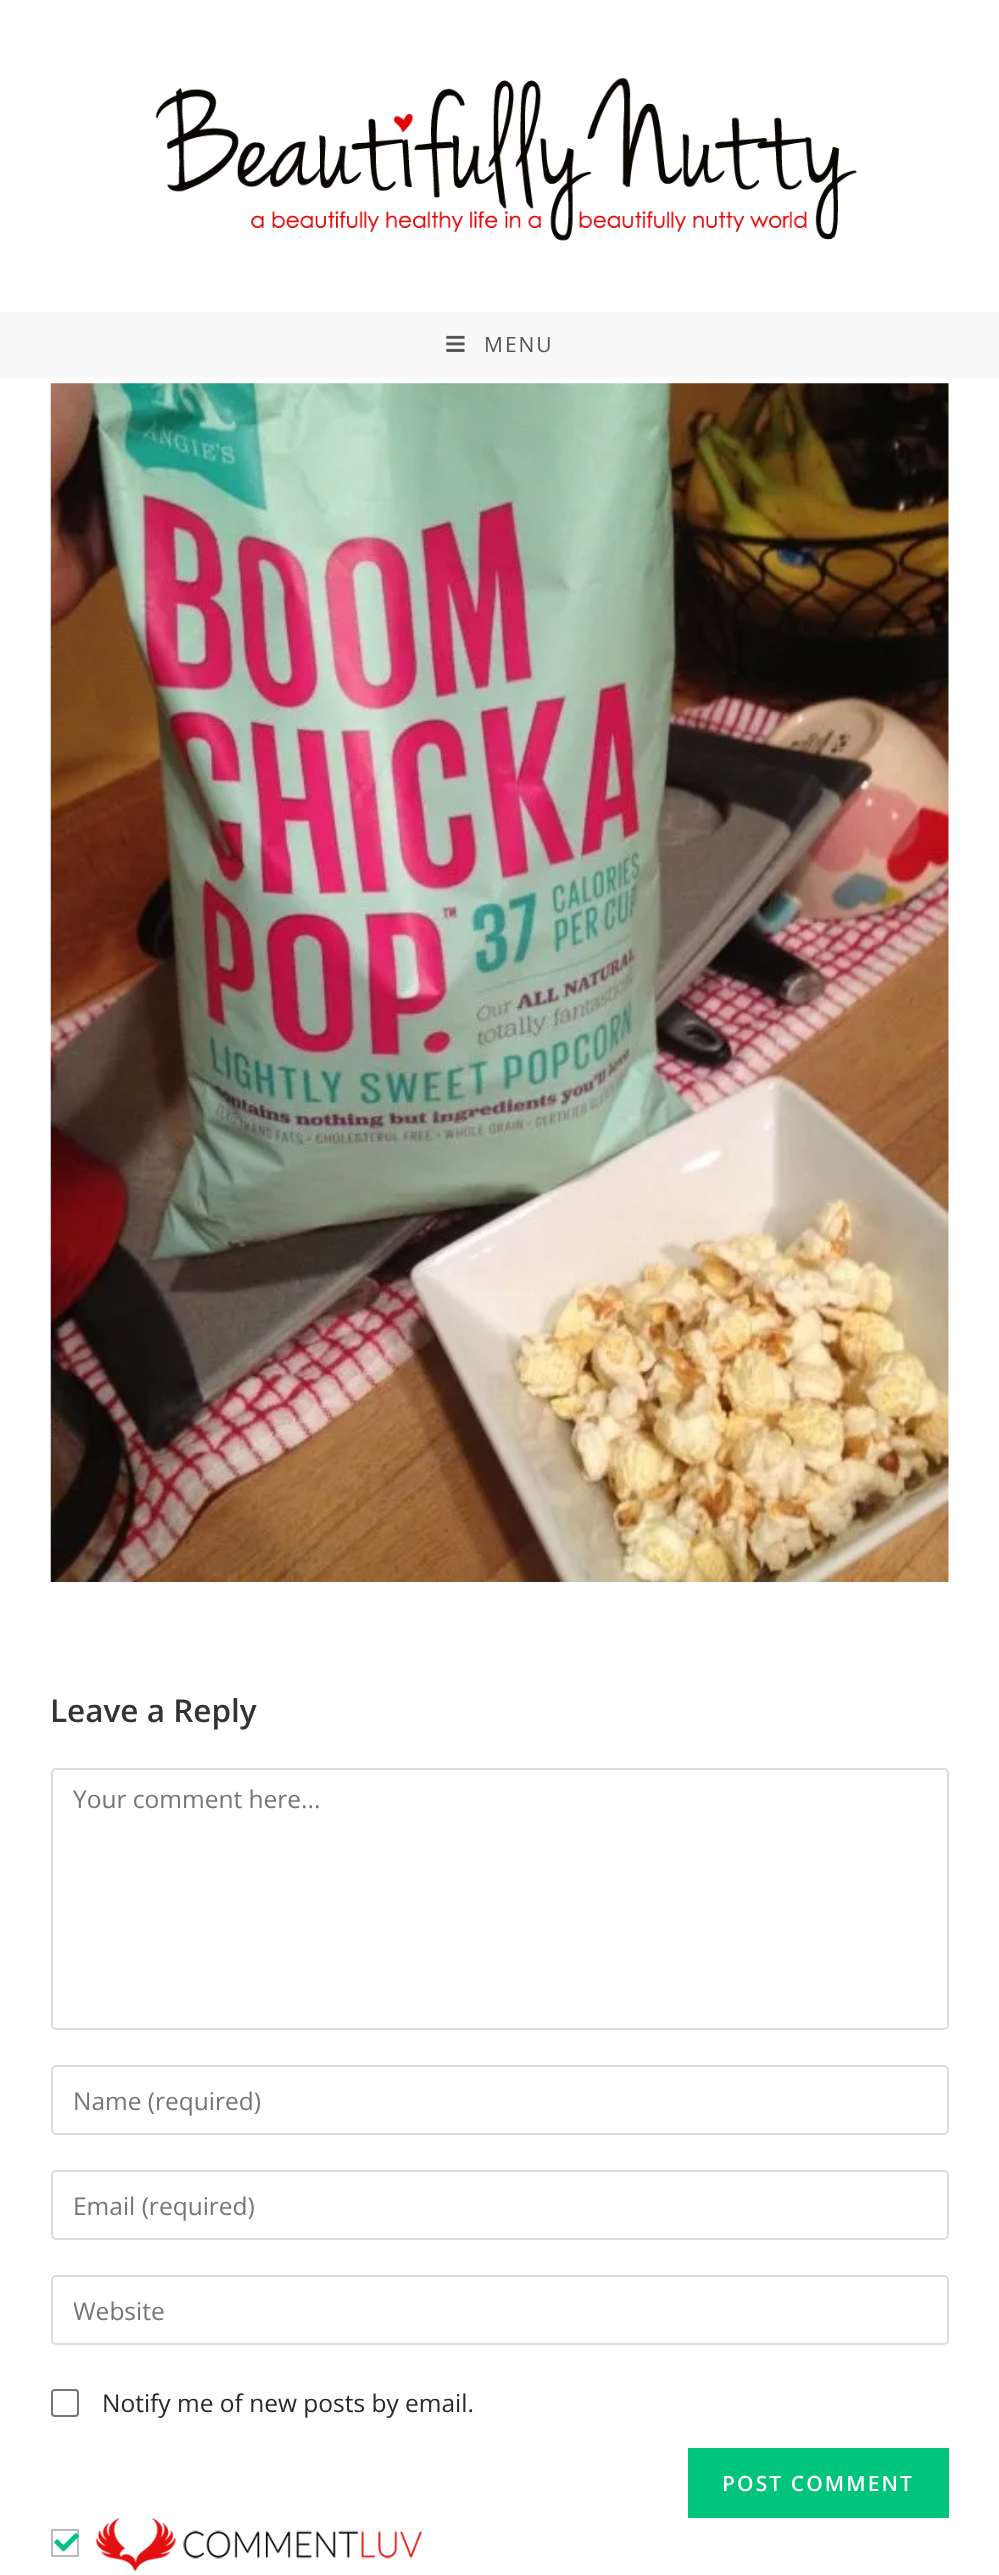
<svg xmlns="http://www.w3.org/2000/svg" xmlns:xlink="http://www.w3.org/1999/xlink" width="999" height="2575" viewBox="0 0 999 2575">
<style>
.cls-1{font:21px Open Sans;letter-spacing:2px;fill:#555555}
.cls-2{font:600 31.5px Open Sans;fill:#333333}
.cls-3{font:24.5px Open Sans;fill:#757575}
.cls-4{font:24.5px Open Sans;fill:#282828}
.cls-5{font:600 21px Open Sans;letter-spacing:2.1px;fill:#ffffff}
</style>
<defs>
<clipPath id="clip1"><rect x="74" y="2294" width="852" height="34"/></clipPath>
</defs>
<rect width="100%" height="100%" fill="#ffffff"/>
<image xlink:href="image0.png" x="155" y="77" width="702" height="164"/>
<rect fill="#f9f9f9" x="0" y="312" width="999" height="66"/>
<image xlink:href="image1.png" x="446" y="335" width="19" height="17"/>
<image xlink:href="image2.png" x="50" y="383" width="899" height="1199"/>
<rect fill="none" stroke="#dddddd" stroke-width="2" x="52" y="1769" width="896" height="260" rx="4"/>
<rect fill="none" stroke="#dddddd" stroke-width="2" x="52" y="2066" width="896" height="68" rx="4"/>
<rect fill="none" stroke="#dddddd" stroke-width="2" x="52" y="2171" width="896" height="68" rx="4"/>
<rect fill="none" stroke="#dddddd" stroke-width="2" x="52" y="2276" width="896" height="68" rx="4"/>
<rect fill="none" stroke="#767676" stroke-width="2" x="52" y="2390" width="26" height="26" rx="3"/>
<rect fill="#00c47c" x="688" y="2448" width="261" height="70"/>
<rect fill="none" stroke="#bbbbbb" stroke-width="2" x="52" y="2530" width="26" height="26"/>
<image xlink:href="image3.png" x="54" y="2533" width="25" height="19"/>
<image xlink:href="image4.png" x="96" y="2518" width="326" height="53"/>
<text class="cls-1" x="484" y="352">MENU</text>
<text class="cls-2" x="50" y="1722">Leave a Reply</text>
<text class="cls-3" x="73" y="1808">Your comment here...</text>
<text class="cls-3" x="73" y="2110">Name (required)</text>
<text class="cls-3" x="73" y="2215">Email (required)</text>
<g clip-path="url(#clip1)">
<text class="cls-3" x="73" y="2320">Website</text>
</g>
<text class="cls-4" x="102" y="2412">Notify me of new posts by email.</text>
<text class="cls-5" x="722" y="2491">POST COMMENT</text>
</svg>
